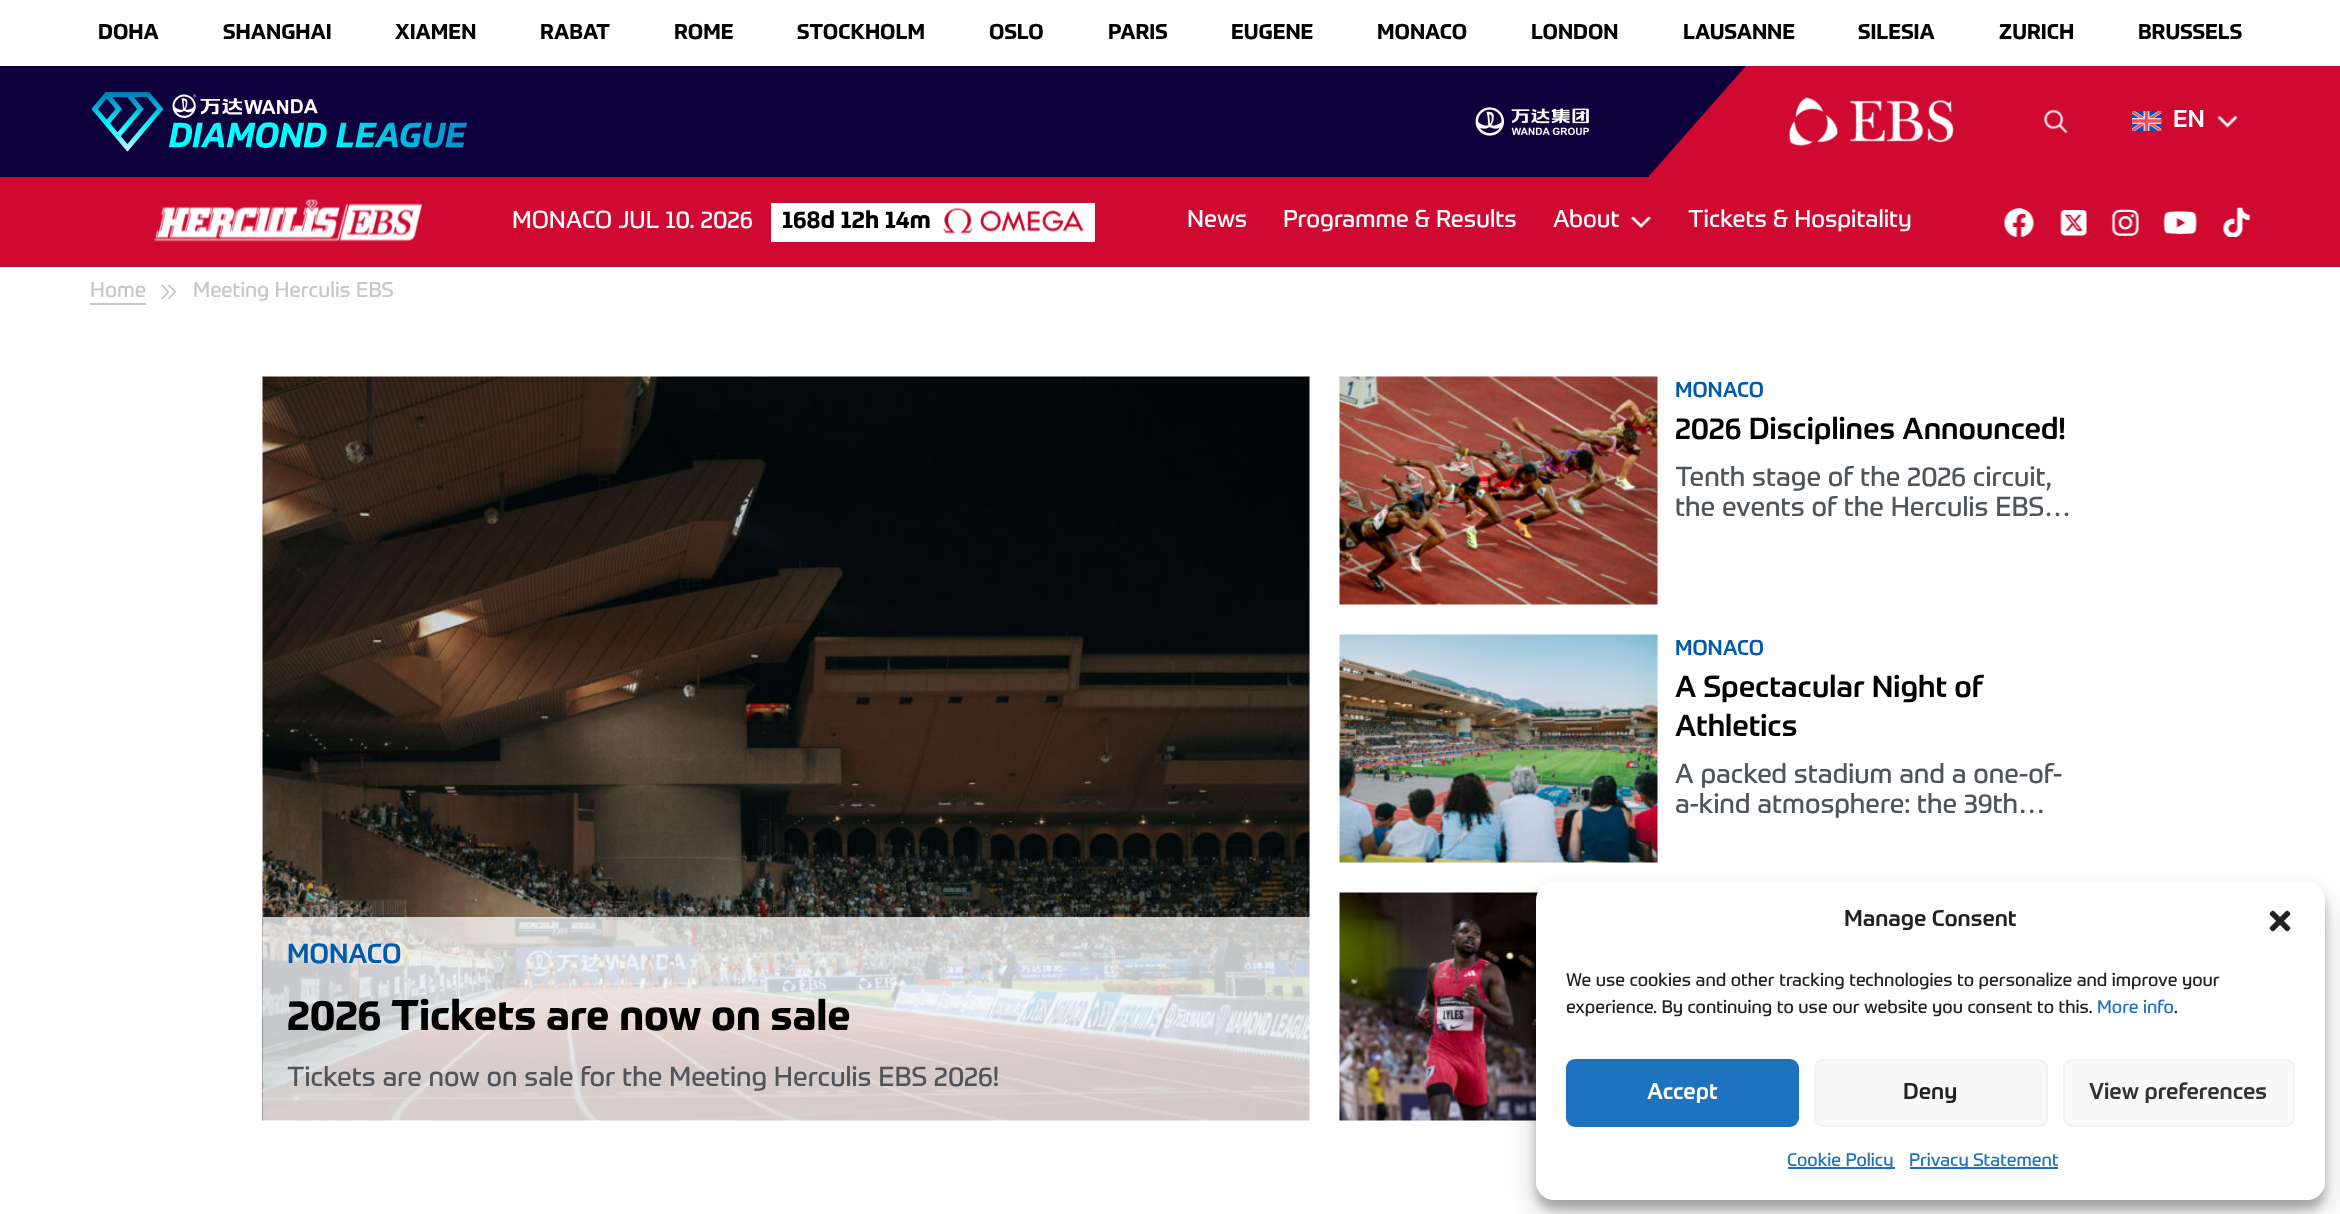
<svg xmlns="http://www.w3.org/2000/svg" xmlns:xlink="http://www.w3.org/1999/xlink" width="2340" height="1214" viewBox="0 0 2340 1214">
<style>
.cls-1{font:bold 21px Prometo;fill:#000000}
.cls-2{font:500 24px Prometo;fill:#ffffff}
.cls-3{font:24px Prometo;fill:#ffffff}
.cls-4{font:bold 24px Prometo;fill:#000000}
.cls-5{font:21px Prometo;fill:#c4c8ce}
.cls-6{font:500 21px Prometo;fill:#005bac}
.cls-7{font:500 30px Prometo;fill:#000000}
.cls-8{font:27px Prometo;fill:#4f555b}
.cls-9{font:500 27px Prometo;fill:#005bac}
.cls-10{font:bold 42px Prometo;fill:#000000}
.cls-11{font:500 22.5px Prometo;fill:#222222}
.cls-12{font:18px Prometo;fill:#222222}
.cls-13{font:18px Prometo;fill:#1e73be}
.cls-14{font:500 22.5px Prometo;fill:#ffffff}
.cls-15{font:500 22.5px Prometo;fill:#333333}
</style>
<defs>
<clipPath id="clip1"><rect x="1676" y="413" width="402" height="39"/></clipPath>
<clipPath id="clip2"><rect x="1676" y="464" width="402" height="60"/></clipPath>
<clipPath id="clip3"><rect x="1676" y="761" width="402" height="60"/></clipPath>
</defs>
<rect width="100%" height="100%" fill="#ffffff"/>
<rect fill="#0e003c" x="0" y="66" width="1746" height="111"/>
<image xlink:href="image0.png" x="91" y="92" width="377" height="60"/>
<image xlink:href="image1.png" x="1475" y="107" width="114" height="29"/>
<path fill="#d00931" d="M1746 66L1649 176V177H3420V66Z"/>
<image xlink:href="image2.png" x="1789" y="97" width="165" height="49"/>
<image xlink:href="image3.png" x="2044" y="109" width="24" height="25"/>
<image xlink:href="image4.png" x="2132" y="111" width="30" height="20"/>
<image xlink:href="image5.png" x="2217" y="115" width="21" height="13"/>
<rect fill="#d00931" x="0" y="177" width="2340" height="90"/>
<image xlink:href="image6.png" x="154" y="199" width="269" height="43"/>
<rect fill="#ffffff" x="771" y="203" width="324" height="39"/>
<image xlink:href="image7.png" x="943" y="208" width="140" height="26"/>
<image xlink:href="image8.png" x="1631" y="216" width="20" height="12"/>
<image xlink:href="image9.png" x="2004" y="208" width="30" height="29"/>
<image xlink:href="image10.png" x="2060" y="210" width="27" height="26"/>
<image xlink:href="image11.png" x="2111" y="209" width="28" height="27"/>
<image xlink:href="image12.png" x="2163" y="211" width="34" height="23"/>
<image xlink:href="image13.png" x="2222" y="207" width="29" height="30"/>
<rect fill="#c4c8ce" x="90" y="303" width="56" height="2"/>
<image xlink:href="image14.png" x="161" y="284" width="15" height="15"/>
<image xlink:href="image15.png" x="1339" y="376" width="319" height="229"/>
<image xlink:href="image16.png" x="1339" y="634" width="319" height="229"/>
<image xlink:href="image17.png" x="262" y="376" width="1048" height="745"/>
<rect fill="#ffffff" fill-opacity="0.75" x="263" y="917" width="1047" height="204"/>
<image xlink:href="image18.png" x="1339" y="892" width="199" height="229"/>
<rect fill="#000000" fill-opacity="0.23" filter="blur(4.5px)" x="1536" y="891" width="789" height="318" rx="18"/>
<rect fill="#000000" fill-opacity="0.19" filter="blur(15px)" x="1536" y="897" width="789" height="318" rx="18"/>
<rect fill="#ffffff" x="1536" y="882" width="789" height="318" rx="18"/>
<image xlink:href="image19.png" x="2269" y="910" width="22" height="22"/>
<rect fill="#1e73be" stroke="#1e73be" stroke-width="2" x="1567" y="1060" width="231" height="66" rx="8"/>
<rect fill="#f9f9f9" stroke="#f2f2f2" stroke-width="2" x="1815" y="1060" width="232" height="66" rx="8"/>
<rect fill="#f9f9f9" stroke="#f2f2f2" stroke-width="2" x="2064" y="1060" width="230" height="66" rx="8"/>
<rect fill="#1e73be" x="1788" y="1167" width="107" height="2"/>
<rect fill="#1e73be" x="1910" y="1167" width="148" height="2"/>
<text class="cls-1" x="98" y="39">DOHA</text>
<text class="cls-1" x="223" y="39">SHANGHAI</text>
<text class="cls-1" x="395" y="39">XIAMEN</text>
<text class="cls-1" x="540" y="39">RABAT</text>
<text class="cls-1" x="674" y="39">ROME</text>
<text class="cls-1" x="797" y="39">STOCKHOLM</text>
<text class="cls-1" x="989" y="39">OSLO</text>
<text class="cls-1" x="1108" y="39">PARIS</text>
<text class="cls-1" x="1231" y="39">EUGENE</text>
<text class="cls-1" x="1377" y="39">MONACO</text>
<text class="cls-1" x="1531" y="39">LONDON</text>
<text class="cls-1" x="1683" y="39">LAUSANNE</text>
<text class="cls-1" x="1858" y="39">SILESIA</text>
<text class="cls-1" x="1999" y="39">ZURICH</text>
<text class="cls-1" x="2138" y="39">BRUSSELS</text>
<text class="cls-2" x="2173" y="127">EN</text>
<text class="cls-3" x="512" y="228">MONACO JUL 10. 2026</text>
<text class="cls-4" x="782" y="228">168d 12h 14m</text>
<text class="cls-3" x="1187" y="227">News</text>
<text class="cls-3" x="1283" y="227">Programme &amp; Results</text>
<text class="cls-3" x="1553" y="227">About</text>
<text class="cls-3" x="1688" y="227">Tickets &amp; Hospitality</text>
<text class="cls-5" x="90" y="297">Home</text>
<text class="cls-5" x="193" y="297">Meeting Herculis EBS</text>
<text class="cls-6" x="1675" y="397">MONACO</text>
<g clip-path="url(#clip1)">
<text class="cls-7" x="1675" y="439">2026 Disciplines Announced!</text>
</g>
<g clip-path="url(#clip2)">
<text class="cls-8" x="1675" y="486">Tenth stage of the 2026 circuit,</text>
</g>
<text class="cls-8" x="1675" y="516">the events of the Herculis EBS…</text>
<text class="cls-6" x="1675" y="655">MONACO</text>
<text class="cls-7"><tspan x="1675" y="697">A Spectacular Night of</tspan><tspan x="1675" y="736">Athletics</tspan></text>
<text class="cls-8" x="1675" y="783">A packed stadium and a one-of-</text>
<g clip-path="url(#clip3)">
<text class="cls-8" x="1675" y="813">a-kind atmosphere: the 39th…</text>
</g>
<text class="cls-9" x="287" y="963">MONACO</text>
<text class="cls-10" x="287" y="1030">2026 Tickets are now on sale</text>
<text class="cls-8" x="287" y="1086">Tickets are now on sale for the Meeting Herculis EBS 2026!</text>
<text class="cls-11" x="1844" y="926">Manage Consent</text>
<text class="cls-12"><tspan x="1566" y="986">We use cookies and other tracking technologies to personalize and improve your</tspan><tspan x="1566" y="1013">experience. By continuing to use our website you consent to this.</tspan></text>
<text class="cls-13" x="2097" y="1013">More info</text>
<text class="cls-12" x="2174" y="1013">.</text>
<text class="cls-14" x="1647" y="1099">Accept</text>
<text class="cls-11" x="1903" y="1099">Deny</text>
<text class="cls-15" x="2089" y="1099">View preferences</text>
<text class="cls-13" x="1787" y="1166">Cookie Policy</text>
<text class="cls-13" x="1909" y="1166">Privacy Statement</text>
</svg>
